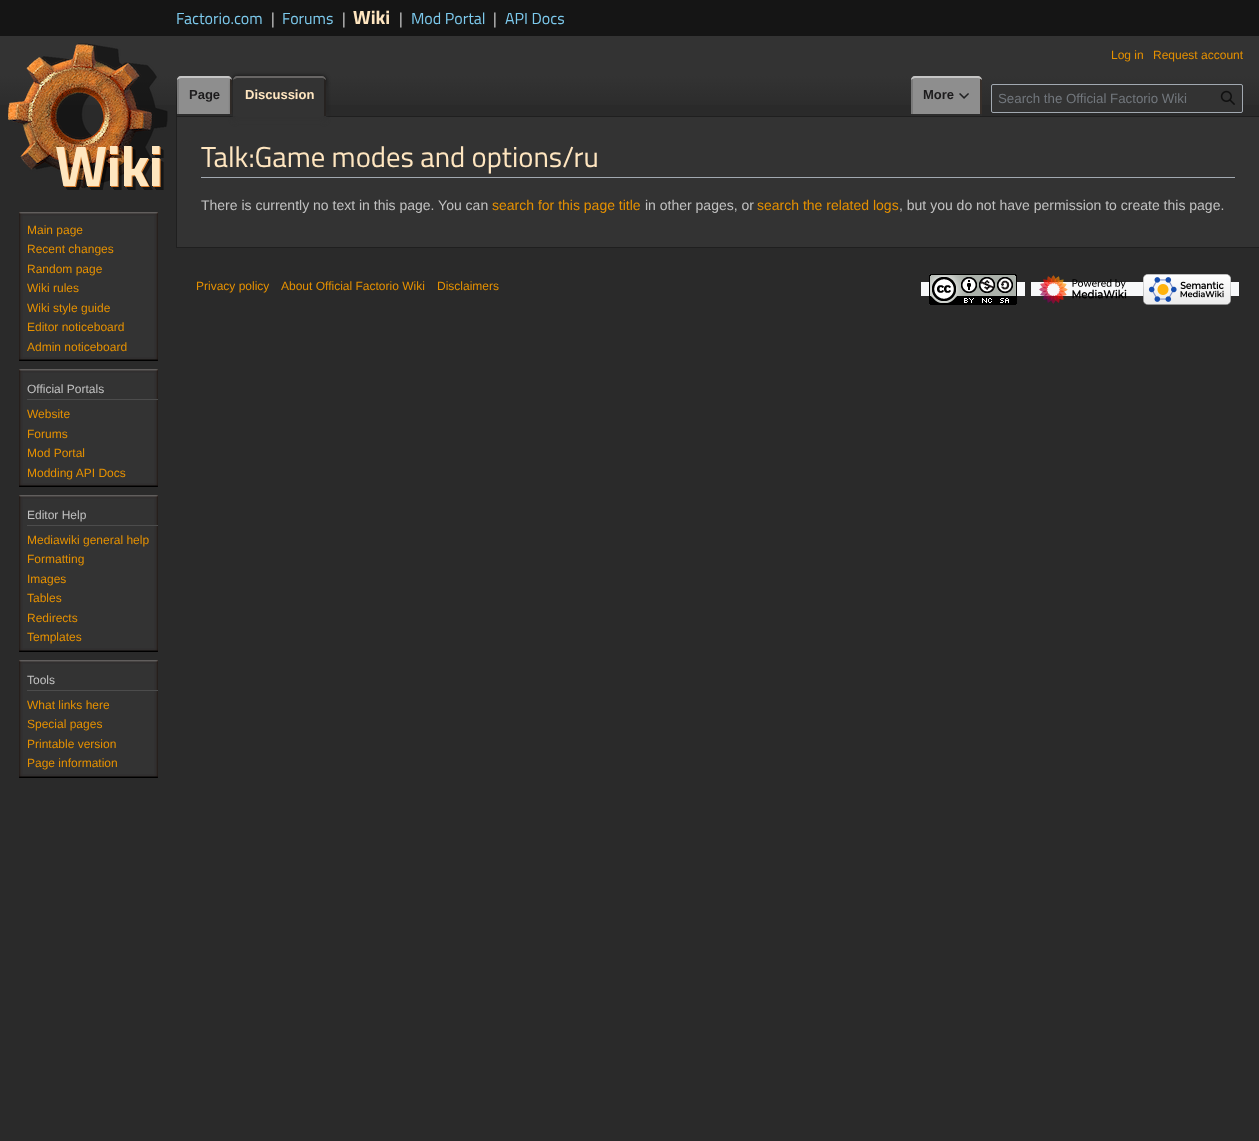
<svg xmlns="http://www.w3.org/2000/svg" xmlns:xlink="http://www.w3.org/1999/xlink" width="1259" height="1141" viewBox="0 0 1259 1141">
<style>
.cls-1{font:16px Titillium Web;fill:#7dcaed}
.cls-2{font:16px Titillium Web;fill:#cccccc}
.cls-3{font:bold 19px Titillium Web;fill:#ffe6c0}
.cls-4{font:12px Liberation Sans;fill:#e69100}
.cls-5{font:bold 13px Liberation Sans;fill:#1d1c1d}
.cls-6{font:bold 13px Liberation Sans;fill:#ffe6c0}
.cls-7{font:13.3px Liberation Sans;fill:#72777d}
.cls-8{font:12px Liberation Sans;fill:#c1c1c1}
.cls-9{font:28.75px Titillium Web;fill:#ffe6c0}
.cls-10{font:14px Liberation Sans;fill:#c1c1c1}
.cls-11{font:14px Liberation Sans;fill:#e69100}
</style>
<defs>
<linearGradient id="g1" gradientUnits="userSpaceOnUse" x1="630" y1="36" x2="630" y2="116"><stop offset="0.5" stop-color="#333333"/><stop offset="1" stop-color="#2a2a2a"/></linearGradient>
<linearGradient id="g2" gradientUnits="userSpaceOnUse" x1="177" y1="76" x2="177" y2="116"><stop offset="0.05" stop-color="#333333"/><stop offset="0.6" stop-color="#1f1f1f"/></linearGradient>
</defs>
<rect width="100%" height="100%" fill="#2a2a2a"/>
<rect fill="#151515" x="0" y="0" width="1259" height="36"/>
<rect fill="url(#g1)" x="0" y="36" width="1259" height="69"/>
<rect fill="url(#g2)" x="176" y="76" width="1" height="40"/>
<path fill="#8e8e8e" d="M181 76H228C230 76 232 78 232 80V116H177V80C177 78 179 76 181 76Z"/>
<path fill="#372f2a" d="M230 116H232V80C232 78 230.5 76 228.5 76C229.5 77 230 78.5 230 80Z"/>
<path fill="#7a7a7a" d="M180.5 76C178.5 76 177 78 177 80V116H179V80C179 78.5 179.5 77 180.5 76Z"/>
<rect fill="#2d2d2d" x="177" y="114" width="55" height="2"/>
<path fill="#c5c5c5" d="M181 78H228C229 78 231 79 232 80C232 78 230 76 228 76H181C179 76 177 78 177 80C178 79 180 78 181 78Z"/>
<rect fill="#1f1f1f" x="176" y="116" width="1083" height="1"/>
<rect fill="#333333" x="233" y="87" width="93" height="30"/>
<rect fill="#333333" x="177" y="117" width="1082" height="130"/>
<rect fill="#101010" filter="blur(2px)" x="233" y="76" width="93" height="40" rx="4"/>
<rect fill="#333333" filter="blur(2px)" x="233" y="82" width="93" height="40" rx="4"/>
<path fill="#333333" d="M237 76H322C324 76 326 78 326 80V116H233V80C233 78 235 76 237 76Z"/>
<path fill="#262220" d="M324 116H326V80C326 78 324.5 76 322.5 76C323.5 77 324 78.5 324 80Z"/>
<path fill="#686665" d="M237 78H323L326 80C326 78 324 76 322 76H237C235 76 233 78 233 80C234 79 236 78 237 78Z"/>
<path fill="#8e8e8e" d="M915 76H978C980 76 982 78 982 80V116H911V80C911 78 913 76 915 76Z"/>
<path fill="#372f2a" d="M980 116H982V80C982 78 980.5 76 978.5 76C979.5 77 980 78.5 980 80Z"/>
<path fill="#7a7a7a" d="M914.5 76C912.5 76 911 78 911 80V116H913V80C913 78.5 913.5 77 914.5 76Z"/>
<rect fill="#2d2d2d" x="911" y="114" width="71" height="2"/>
<path fill="#c5c5c5" d="M915 78H978C979 78 981 79 982 80C982 78 980 76 978 76H915C913 76 911 78 911 80C912 79 914 78 915 78Z"/>
<image xlink:href="image0.png" x="959" y="93" width="10" height="6"/>
<rect fill="#333333" stroke="#a2a9b1" x="991.5" y="84.5" width="251" height="28" rx="1.5"/>
<image xlink:href="image1.png" x="1220" y="90" width="15" height="15"/>
<image xlink:href="image2.png" x="8" y="43" width="160" height="147"/>
<rect fill="#333333" x="23" y="216" width="131" height="141"/>
<image xlink:href="image3.png" x="19" y="212" width="139" height="149"/>
<rect fill="#333333" x="23" y="373" width="131" height="110"/>
<image xlink:href="image4.png" x="19" y="369" width="139" height="118"/>
<rect fill="#4c4c4c" x="27" y="399" width="131" height="1"/>
<rect fill="#333333" x="23" y="499" width="131" height="149"/>
<image xlink:href="image5.png" x="19" y="495" width="139" height="157"/>
<rect fill="#4c4c4c" x="27" y="525" width="131" height="1"/>
<rect fill="#333333" x="23" y="664" width="131" height="110"/>
<image xlink:href="image4.png" x="19" y="660" width="139" height="118"/>
<rect fill="#4c4c4c" x="27" y="690" width="131" height="1"/>
<rect fill="#1f1f1f" x="176" y="247" width="1083" height="1"/>
<rect fill="#1f1f1f" x="176" y="116" width="1" height="132"/>
<rect fill="#a2a9b1" x="201" y="177" width="1034" height="1"/>
<rect fill="#f8f9fa" x="921" y="282" width="104" height="14"/>
<image xlink:href="image6.png" x="929" y="274" width="88" height="31"/>
<rect fill="#f8f9fa" x="1031" y="282" width="208" height="14"/>
<image xlink:href="image7.png" x="1039" y="275" width="88" height="29"/>
<image xlink:href="image8.png" x="1143" y="274" width="88" height="31"/>
<text class="cls-1" x="176" y="24">Factorio.com</text>
<text class="cls-2" x="271" y="24">|</text>
<text class="cls-1" x="282" y="24">Forums</text>
<text class="cls-2" x="342" y="24">|</text>
<text class="cls-3" x="353" y="24">Wiki</text>
<text class="cls-2" x="399" y="24">|</text>
<text class="cls-1" x="411" y="24">Mod Portal</text>
<text class="cls-2" x="493" y="24">|</text>
<text class="cls-1" x="505" y="24">API Docs</text>
<text class="cls-4" x="1111" y="59">Log in</text>
<text class="cls-4" x="1153" y="59">Request account</text>
<text class="cls-5" x="189" y="99">Page</text>
<text class="cls-6" x="245" y="99">Discussion</text>
<text class="cls-5" x="923" y="99">More</text>
<text class="cls-7" x="998" y="103">Search the Official Factorio Wiki</text>
<text class="cls-4"><tspan x="27" y="234">Main page</tspan><tspan x="27" y="253">Recent changes</tspan><tspan x="27" y="273">Random page</tspan><tspan x="27" y="292">Wiki rules</tspan><tspan x="27" y="312">Wiki style guide</tspan><tspan x="27" y="331">Editor noticeboard</tspan><tspan x="27" y="351">Admin noticeboard</tspan></text>
<text class="cls-8" x="27" y="393">Official Portals</text>
<text class="cls-4"><tspan x="27" y="418">Website</tspan><tspan x="27" y="438">Forums</tspan><tspan x="27" y="457">Mod Portal</tspan><tspan x="27" y="477">Modding API Docs</tspan></text>
<text class="cls-8" x="27" y="519">Editor Help</text>
<text class="cls-4"><tspan x="27" y="544">Mediawiki general help</tspan><tspan x="27" y="563">Formatting</tspan><tspan x="27" y="583">Images</tspan><tspan x="27" y="602">Tables</tspan><tspan x="27" y="622">Redirects</tspan><tspan x="27" y="641">Templates</tspan></text>
<text class="cls-8" x="27" y="684">Tools</text>
<text class="cls-4"><tspan x="27" y="709">What links here</tspan><tspan x="27" y="728">Special pages</tspan><tspan x="27" y="748">Printable version</tspan><tspan x="27" y="767">Page information</tspan></text>
<text class="cls-9" x="201" y="167">Talk:Game modes and options/ru</text>
<text class="cls-10" x="201" y="210">There is currently no text in this page. You can</text>
<text class="cls-11" x="492" y="210">search for this page title</text>
<text class="cls-10" x="645" y="210">in other pages, or</text>
<text class="cls-11" x="757" y="210">search the related logs</text>
<text class="cls-10" x="899" y="210">, but you do not have permission to create this page.</text>
<text class="cls-4" x="196" y="290">Privacy policy</text>
<text class="cls-4" x="281" y="290">About Official Factorio Wiki</text>
<text class="cls-4" x="437" y="290">Disclaimers</text>
</svg>
